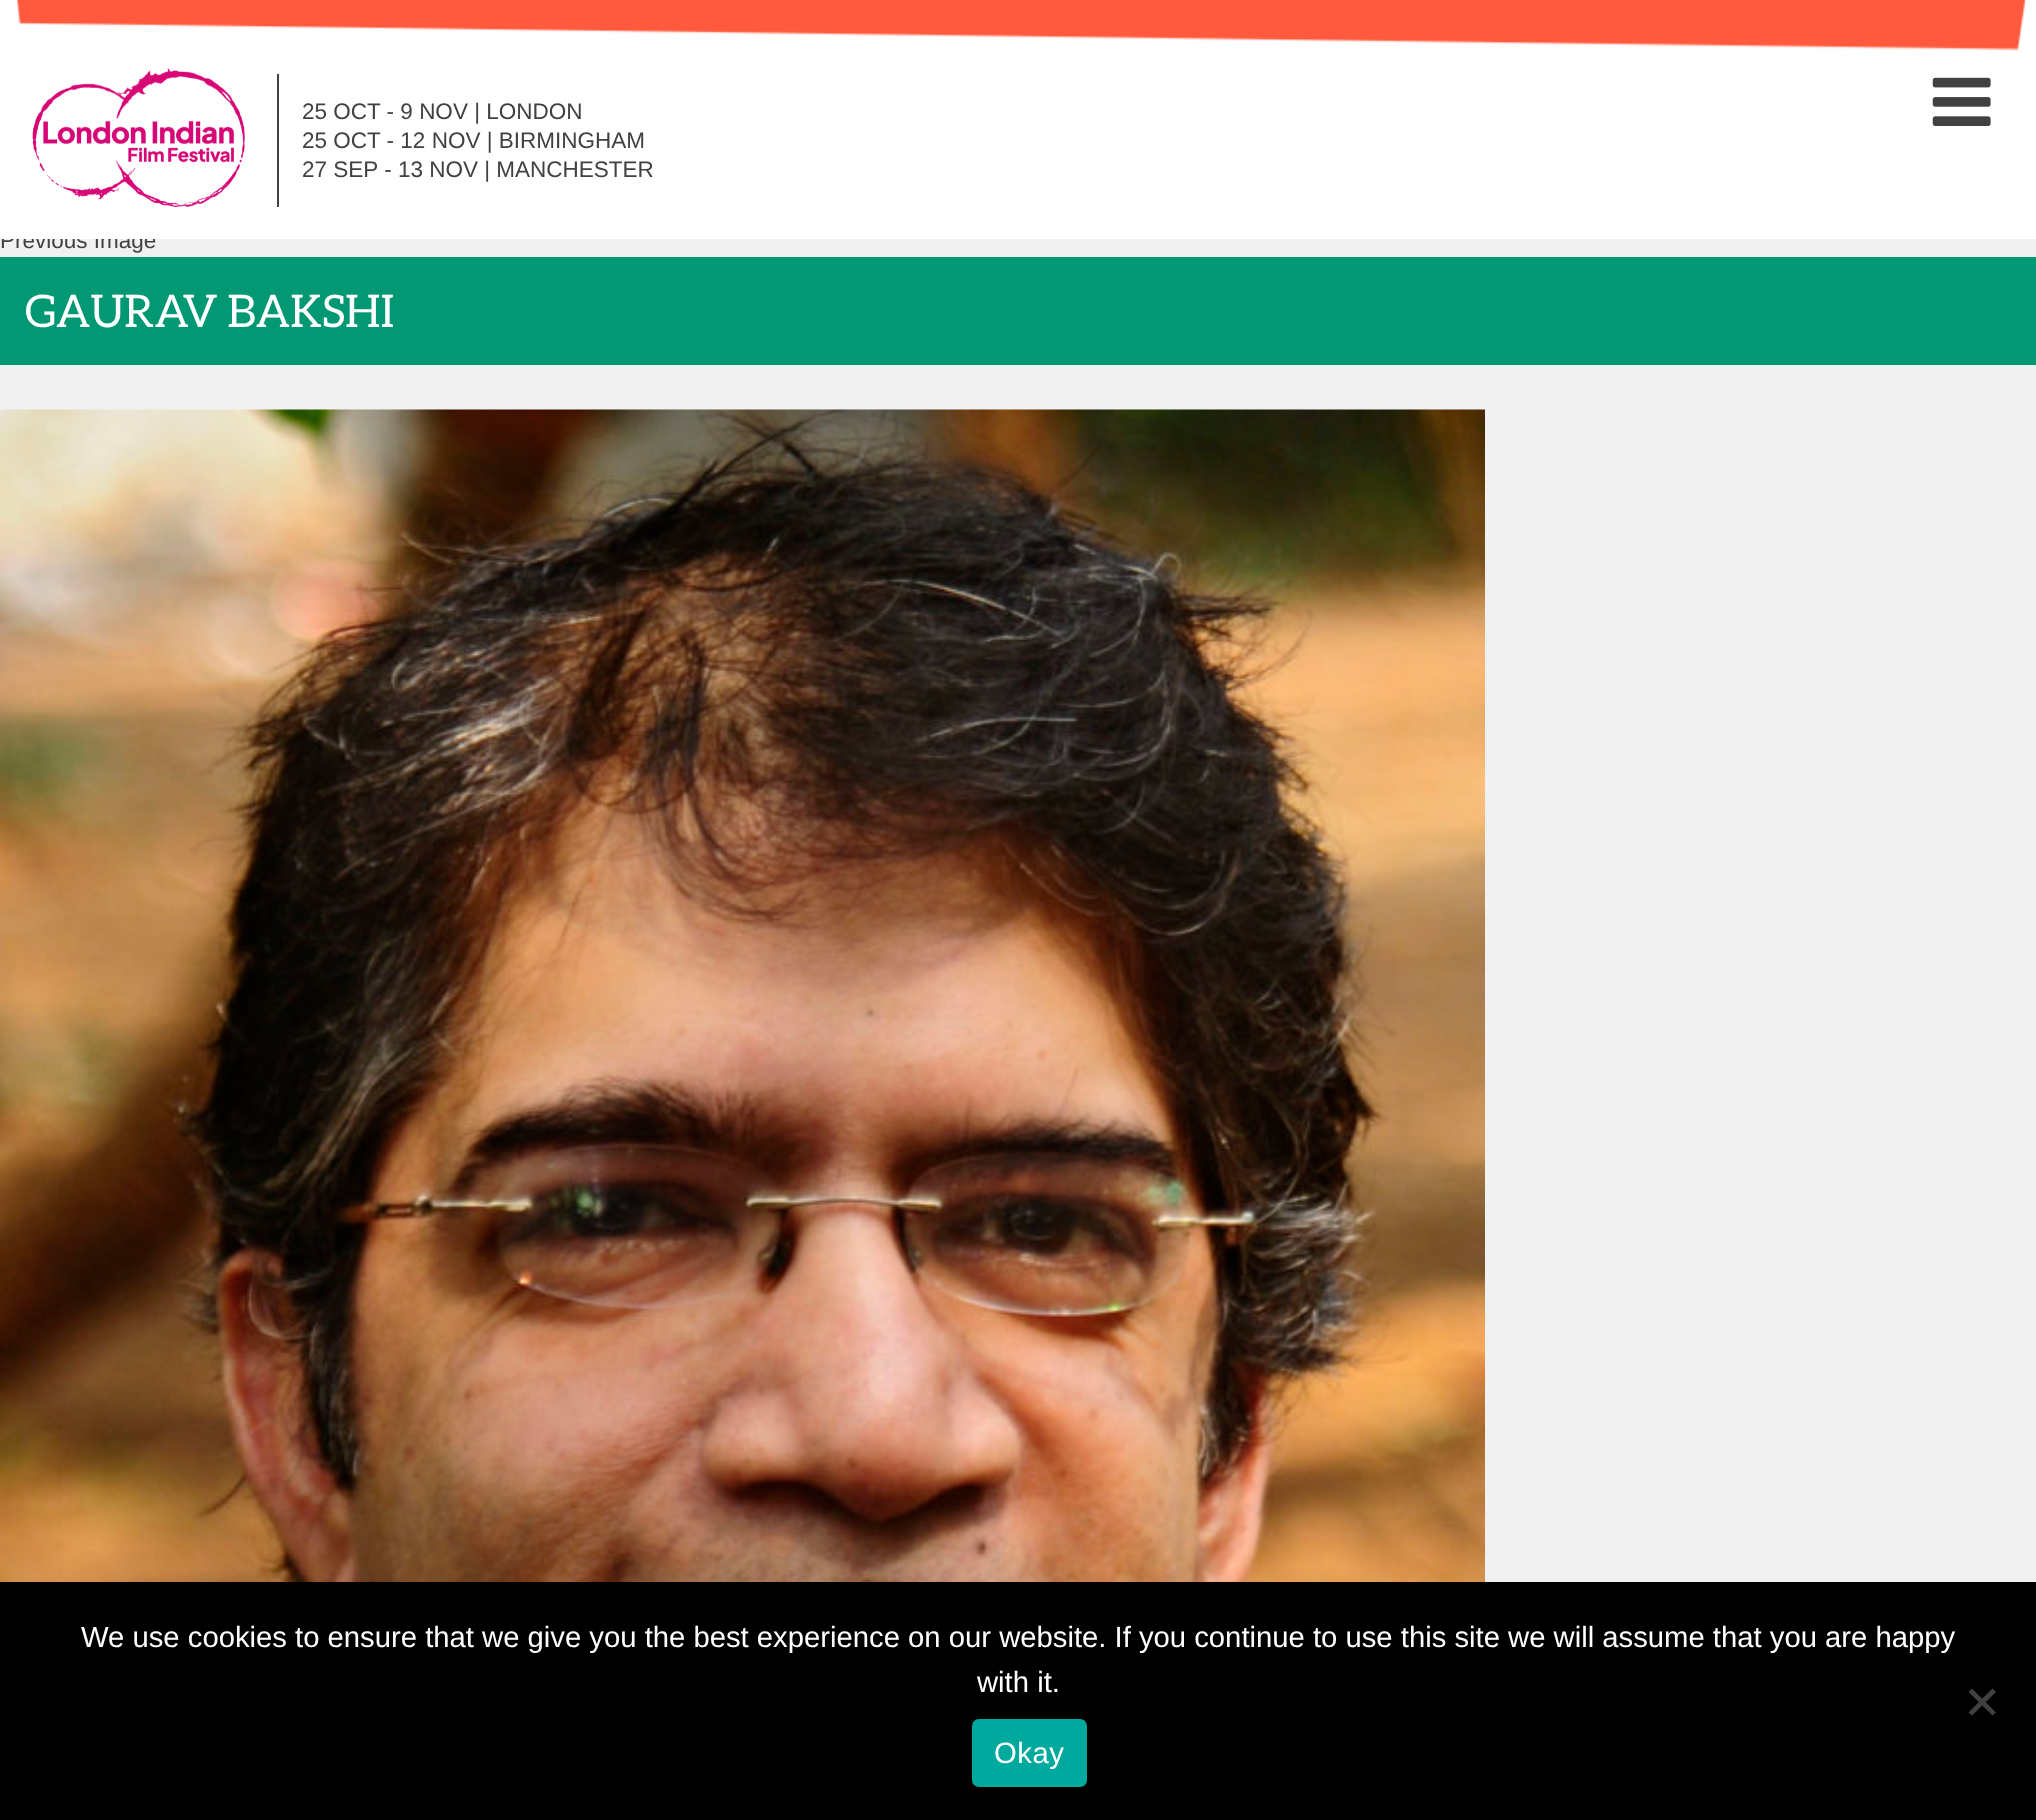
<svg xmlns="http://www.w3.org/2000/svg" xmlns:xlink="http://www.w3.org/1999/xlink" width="2036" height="1820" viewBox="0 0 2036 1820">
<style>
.cls-1{font:22.5px Liberation Sans;fill:#414042}
.cls-2{font:45px Aleo;fill:#ffffff}
.cls-3{font:29.25px Liberation Sans;fill:#ffffff}
.cls-4{font:29.25px Liberation Sans;letter-spacing:0.5px;fill:#ffffff}
</style>
<rect width="100%" height="100%" fill="#f1f1f1"/>
<rect fill="#029873" x="0" y="257" width="2036" height="108"/>
<image xlink:href="image3.png" x="0" y="409" width="1485" height="1173"/>
<rect fill="#000000" x="0" y="1582" width="2036" height="238"/>
<path fill="#404040" d="M1992.5 1688.5L1996 1692L1972 1715.5L1968.5 1712.5Z"/>
<path fill="#404040" d="M1968.5 1692L1972 1688.5L1996 1712.5L1992.5 1715.5Z"/>
<rect fill="#00a99d" x="972" y="1719" width="115" height="68" rx="7"/>
<text class="cls-1" x="0" y="248">Previous Image</text>
<rect fill="#ffffff" x="0" y="0" width="2036" height="239"/>
<image xlink:href="image2.png" x="1932" y="77" width="59" height="49"/>
<image xlink:href="image0.png" x="17" y="0" width="2010" height="51"/>
<text class="cls-1" x="302" y="177">27 SEP - 13 NOV | MANCHESTER</text>
<text class="cls-1" x="302" y="148">25 OCT - 12 NOV | BIRMINGHAM</text>
<text class="cls-1" x="302" y="119">25 OCT - 9 NOV | LONDON</text>
<rect fill="#414042" x="277" y="74" width="2" height="133"/>
<image xlink:href="image1.png" x="32" y="68" width="213" height="139"/>
<text class="cls-2" x="25" y="327">GAURAV BAKSHI</text>
<text class="cls-3" x="81" y="1647">We use cookies to ensure that we give you the best experience on our website. If you continue to use this site we will assume that you are happy</text>
<text class="cls-3" x="977" y="1692">with it.</text>
<text class="cls-4" x="994" y="1763">Okay</text>
</svg>
